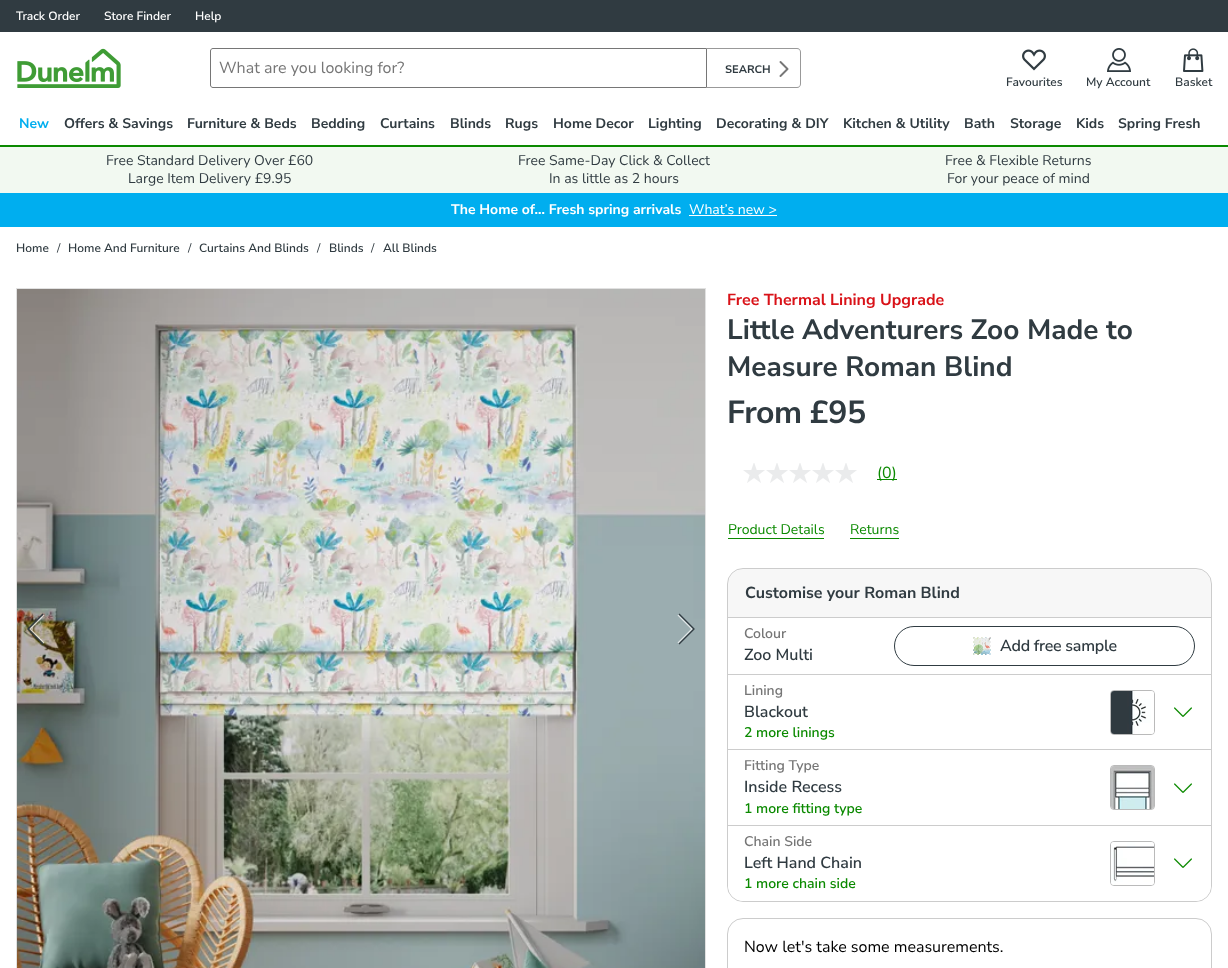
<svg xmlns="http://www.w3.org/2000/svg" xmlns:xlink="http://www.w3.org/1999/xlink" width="1228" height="968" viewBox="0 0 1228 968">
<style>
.cls-1{font:600 12px Nunito Sans;fill:#ffffff}
.cls-2{font:16px Nunito Sans;fill:#767676}
.cls-3{font:bold 11px 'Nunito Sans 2';fill:#303b41}
.cls-4{font:600 12px Nunito Sans;fill:#303b41}
.cls-5{font:bold 14px Nunito Sans;fill:#00aeef}
.cls-6{font:bold 14px Nunito Sans;fill:#303b41}
.cls-7{font:14px Nunito Sans;fill:#303b41}
.cls-8{font:bold 14px Nunito Sans;fill:#ffffff}
.cls-9{font:14px Nunito Sans;fill:#ffffff}
.cls-10{font:12px Nunito Sans;fill:#303b41}
.cls-11{font:bold 16px Nunito Sans;fill:#d91218}
.cls-12{font:bold 28px Nunito Sans;fill:#303b41}
.cls-13{font:bold 32px Nunito Sans;letter-spacing:-0.5px;fill:#303b41}
.cls-14{font:16px Nunito Sans;fill:#0b8a00}
.cls-15{font:14px Nunito Sans;fill:#0b8a00}
.cls-16{font:bold 16px Nunito Sans;fill:#303b41}
.cls-17{font:600 14px Nunito Sans;fill:#767676}
.cls-18{font:600 16px Nunito Sans;fill:#303b41}
.cls-19{font:600 16px Nunito Sans;letter-spacing:-0.25px;fill:#303b41}
.cls-20{font:600 14px Nunito Sans;fill:#0b8a00}
.cls-21{font:16px Nunito Sans;fill:#000000}
</style>
<rect width="100%" height="100%" fill="#ffffff"/>
<rect fill="#303b41" x="0" y="0" width="1228" height="32"/>
<rect fill="#0b8a00" x="0" y="145" width="1228" height="2"/>
<image xlink:href="image0.png" x="17" y="48" width="104" height="40"/>
<path fill="none" stroke="#767676" d="M213 48.5H706.5V87.5H213C211.5 87.5 210.5 86.5 210.5 85V51C210.5 49.5 211.5 48.5 213 48.5Z"/>
<path fill="#999999" fill-rule="evenodd" d="M707 48H797C799 48 801 50 801 52V84C801 86 799 88 797 88H707ZM707 49H797C799 49 800 50 800 52V84C800 86 799 87 797 87H707Z"/>
<image xlink:href="image1.png" x="779" y="61" width="10" height="16"/>
<image xlink:href="image2.png" x="1022" y="49" width="24" height="22"/>
<image xlink:href="image3.png" x="1107" y="48" width="24" height="24"/>
<image xlink:href="image4.png" x="1183" y="48" width="21" height="24"/>
<rect fill="#f2f9f1" x="0" y="147" width="1228" height="46"/>
<rect fill="#00aeef" x="0" y="193" width="1228" height="34"/>
<rect fill="#ffffff" x="689" y="215" width="88" height="1"/>
<rect fill="none" stroke="#e1e1e1" x="16.5" y="288.5" width="689" height="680"/>
<image xlink:href="image5.png" x="17" y="289" width="688" height="679"/>
<path fill="none" stroke="#ffffff" stroke-opacity="0.7" stroke-width="1.4" d="M44 643L30 629L44 615"/>
<path fill="none" stroke="#303b41" stroke-width="1.4" stroke-linejoin="round" d="M43 644L28 629L43 614"/>
<path fill="none" stroke="#e1e6e7" stroke-width="1.4" d="M678 643L692 629L678 615"/>
<path fill="none" stroke="#303b41" stroke-width="1.4" stroke-linejoin="round" d="M679 644L694 629L679 614"/>
<image xlink:href="image6.png" x="743" y="463" width="22" height="20"/>
<image xlink:href="image6.png" x="766" y="463" width="22" height="20"/>
<image xlink:href="image6.png" x="789" y="463" width="22" height="20"/>
<image xlink:href="image6.png" x="812" y="463" width="22" height="20"/>
<image xlink:href="image6.png" x="835" y="463" width="22" height="20"/>
<rect fill="#0b8a00" x="877" y="479" width="20" height="1"/>
<rect fill="#0b8a00" x="728" y="538" width="96" height="1"/>
<rect fill="#0b8a00" x="850" y="538" width="49" height="1"/>
<rect fill="none" stroke="#cccccc" x="727.5" y="568.5" width="484" height="333" rx="15.5"/>
<path fill="#e1e1e1" fill-opacity="0.25" d="M744 569H1195C1204 569 1211 576 1211 585V618H728V585C728 576 735 569 744 569Z"/>
<rect fill="#cccccc" x="728" y="617" width="483" height="1"/>
<rect fill="#cccccc" x="728" y="674" width="483" height="1"/>
<rect fill="none" stroke="#303c42" x="894.5" y="626.5" width="300" height="39" rx="19.5"/>
<image xlink:href="image7.png" x="973" y="637" width="18" height="18"/>
<rect fill="#cccccc" x="728" y="749" width="483" height="1"/>
<rect fill="none" stroke="#bababa" x="1110.5" y="690.5" width="44" height="44" rx="3.5"/>
<image xlink:href="image8.png" x="1111" y="691" width="43" height="43"/>
<image xlink:href="image9.png" x="1174" y="707" width="18" height="10"/>
<rect fill="#cccccc" x="728" y="825" width="483" height="1"/>
<rect fill="none" stroke="#bababa" x="1110.5" y="765.5" width="44" height="44" rx="3.5"/>
<image xlink:href="image10.png" x="1111" y="766" width="43" height="43"/>
<image xlink:href="image9.png" x="1174" y="783" width="18" height="10"/>
<path fill="#ffffff" d="M728 826H1211V885C1211 894 1204 901 1195 901H744C735 901 728 894 728 885Z"/>
<rect fill="none" stroke="#bababa" x="1110.5" y="841.5" width="44" height="44" rx="3.5"/>
<image xlink:href="image11.png" x="1111" y="842" width="43" height="43"/>
<image xlink:href="image9.png" x="1174" y="858" width="18" height="10"/>
<rect fill="none" stroke="#cccccc" x="727.5" y="918.5" width="484" height="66" rx="15.5"/>
<text class="cls-1" x="16" y="20">Track Order</text>
<text class="cls-1" x="104" y="20">Store Finder</text>
<text class="cls-1" x="195" y="20">Help</text>
<text class="cls-2" x="219" y="73">What are you looking for?</text>
<text class="cls-3" x="725" y="73">SEARCH</text>
<text class="cls-4" x="1006" y="86">Favourites</text>
<text class="cls-4" x="1086" y="86">My Account</text>
<text class="cls-4" x="1175" y="86">Basket</text>
<text class="cls-5" x="19" y="128">New</text>
<text class="cls-6" x="64" y="128">Offers &amp; Savings</text>
<text class="cls-6" x="187" y="128">Furniture &amp; Beds</text>
<text class="cls-6" x="311" y="128">Bedding</text>
<text class="cls-6" x="380" y="128">Curtains</text>
<text class="cls-6" x="450" y="128">Blinds</text>
<text class="cls-6" x="505" y="128">Rugs</text>
<text class="cls-6" x="553" y="128">Home Decor</text>
<text class="cls-6" x="648" y="128">Lighting</text>
<text class="cls-6" x="716" y="128">Decorating &amp; DIY</text>
<text class="cls-6" x="843" y="128">Kitchen &amp; Utility</text>
<text class="cls-6" x="964" y="128">Bath</text>
<text class="cls-6" x="1010" y="128">Storage</text>
<text class="cls-6" x="1076" y="128">Kids</text>
<text class="cls-6" x="1118" y="128">Spring Fresh</text>
<text class="cls-7" x="106" y="165">Free Standard Delivery Over £60</text>
<text class="cls-7" x="128" y="183">Large Item Delivery £9.95</text>
<text class="cls-7" x="518" y="165">Free Same-Day Click &amp; Collect</text>
<text class="cls-7" x="549" y="183">In as little as 2 hours</text>
<text class="cls-7" x="945" y="165">Free &amp; Flexible Returns</text>
<text class="cls-7" x="947" y="183">For your peace of mind</text>
<text class="cls-8" x="451" y="214">The Home of… Fresh spring arrivals</text>
<text class="cls-9" x="689" y="214">What’s new &gt;</text>
<text class="cls-4" x="16" y="252">Home</text>
<text class="cls-10" x="57" y="252">/</text>
<text class="cls-4" x="68" y="252">Home And Furniture</text>
<text class="cls-10" x="188" y="252">/</text>
<text class="cls-4" x="199" y="252">Curtains And Blinds</text>
<text class="cls-10" x="317" y="252">/</text>
<text class="cls-4" x="329" y="252">Blinds</text>
<text class="cls-10" x="371" y="252">/</text>
<text class="cls-4" x="383" y="252">All Blinds</text>
<text class="cls-11" x="727" y="305">Free Thermal Lining Upgrade</text>
<text class="cls-12"><tspan x="727" y="339">Little Adventurers Zoo Made to</tspan><tspan x="727" y="376">Measure Roman Blind</tspan></text>
<text class="cls-13" x="727" y="423">From £95</text>
<text class="cls-14" x="877" y="478">(0)</text>
<text class="cls-15" x="728" y="534">Product Details</text>
<text class="cls-15" x="850" y="534">Returns</text>
<text class="cls-16" x="745" y="598">Customise your Roman Blind</text>
<text class="cls-17" x="744" y="638">Colour</text>
<text class="cls-18" x="744" y="660">Zoo Multi</text>
<text class="cls-19" x="1000" y="651">Add free sample</text>
<text class="cls-17" x="744" y="695">Lining</text>
<text class="cls-18" x="744" y="717">Blackout</text>
<text class="cls-20" x="744" y="737">2 more linings</text>
<text class="cls-17" x="744" y="770">Fitting Type</text>
<text class="cls-18" x="744" y="792">Inside Recess</text>
<text class="cls-20" x="744" y="813">1 more fitting type</text>
<text class="cls-17" x="744" y="846">Chain Side</text>
<text class="cls-18" x="744" y="868">Left Hand Chain</text>
<text class="cls-20" x="744" y="888">1 more chain side</text>
<text class="cls-21" x="744" y="952">Now let's take some measurements.</text>
</svg>
